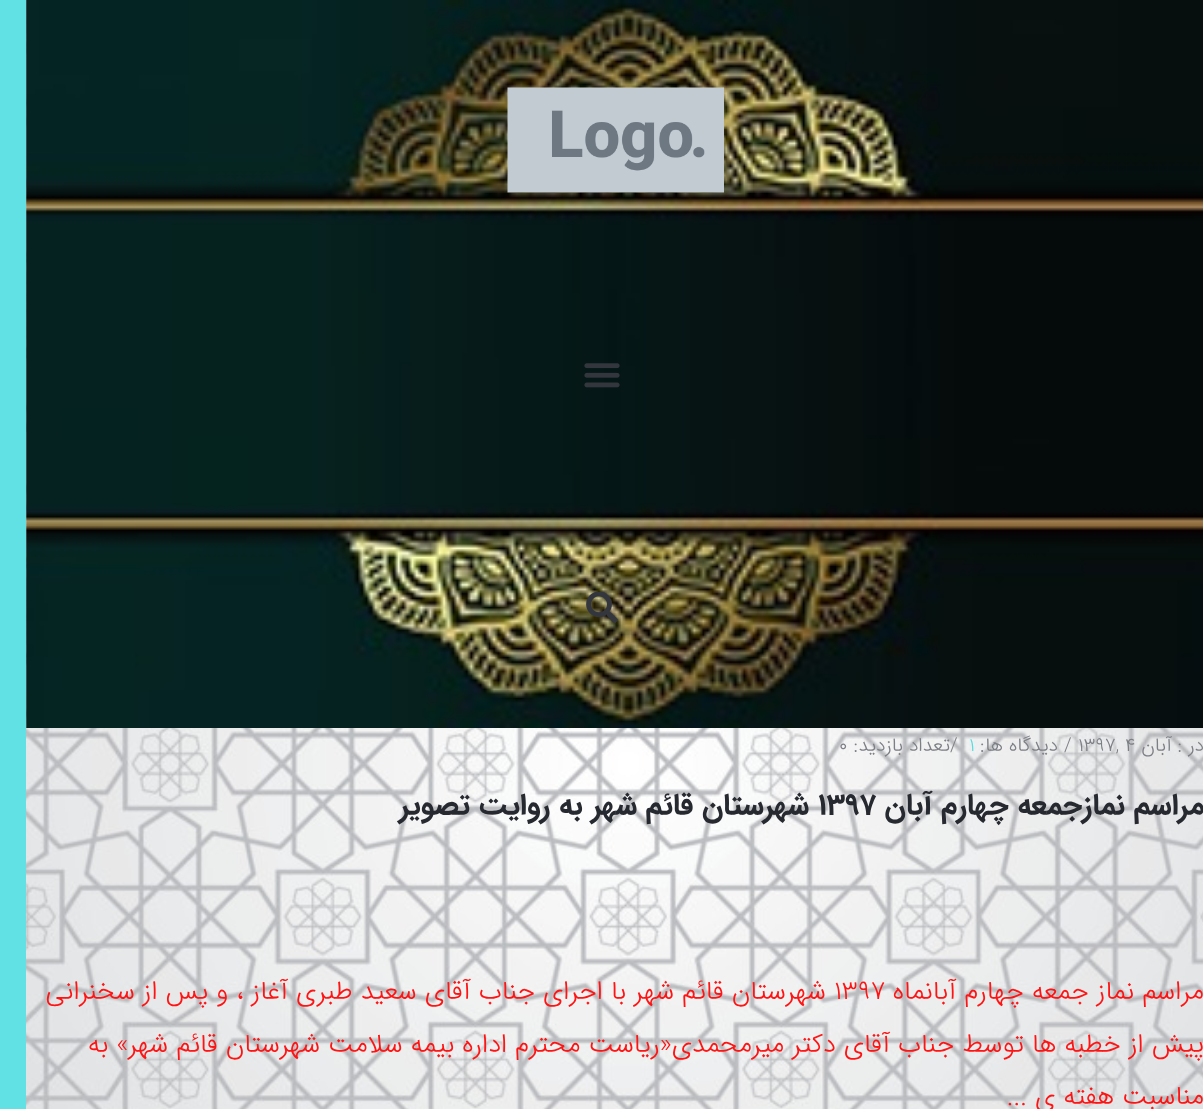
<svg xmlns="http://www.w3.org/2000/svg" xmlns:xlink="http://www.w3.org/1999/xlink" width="1203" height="1109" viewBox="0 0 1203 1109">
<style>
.cls-1{font:300 19.25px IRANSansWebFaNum;direction:rtl;fill:#7c7f85}
.cls-2{font:300 19.25px IRANSansWebFaNum;fill:#7c7f85}
.cls-3{font:300 19.25px IRANSansWebFaNum;fill:#5bdbdd}
.cls-4{font:bold 29.75px IRANSansWebFaNum;direction:rtl;fill:#272930}
.cls-5{font:bold 29.75px IRANSansWebFaNum;fill:#272930}
.cls-6{font:300 26.25px IRANSansWebFaNum;direction:rtl;fill:#ff1313}
.cls-7{font:300 26.25px IRANSansWebFaNum;fill:#ff1313}
</style>
<rect width="100%" height="100%" fill="#61e1e3"/>
<image xlink:href="image0.png" x="26" y="0" width="1177" height="1109"/>
<image xlink:href="image1.png" x="26" y="0" width="1177" height="728"/>
<image xlink:href="image2.png" x="507" y="87" width="217" height="106"/>
<image xlink:href="image3.png" x="584" y="363" width="36" height="25"/>
<rect fill="#000000" fill-opacity="0.05" x="574" y="578" width="58" height="57"/>
<image xlink:href="image4.png" x="586" y="592" width="32" height="31"/>
<text class="cls-1" x="1204" y="751">در :</text>
<text class="cls-1" x="1172" y="751">آبان</text>
<text class="cls-2" x="1078" y="751">۱۳۹۷, ۴</text>
<text class="cls-2" x="1064" y="751">/</text>
<text class="cls-1" x="1058" y="751">دیدگاه ها:</text>
<text class="cls-3" x="969" y="751">۱</text>
<text class="cls-2" x="950" y="751">/</text>
<text class="cls-1" x="950" y="751">تعداد بازدید:</text>
<text class="cls-2" x="839" y="751">0</text>
<text class="cls-4" x="1204" y="814">مراسم نمازجمعه چهارم آبان</text>
<text class="cls-5" x="818" y="814">1397</text>
<text class="cls-4" x="809" y="814">شهرستان قائم شهر به روایت تصویر</text>
<text class="cls-6" x="1204" y="999">مراسم نماز جمعه چهارم آبانماه</text>
<text class="cls-7" x="834" y="999">1397</text>
<text class="cls-6" x="826" y="999">شهرستان قائم شهر با اجرای جناب آقای سعید طبری آغاز ، و پس از سخنرانی</text>
<text class="cls-6"><tspan x="1204" y="1052">پیش از خطبه ها توسط جناب آقای دکتر میرمحمدی«ریاست محترم اداره بیمه سلامت شهرستان قائم شهر» به</tspan><tspan x="1204" y="1104">مناسبت هفته ی ...</tspan></text>
</svg>
